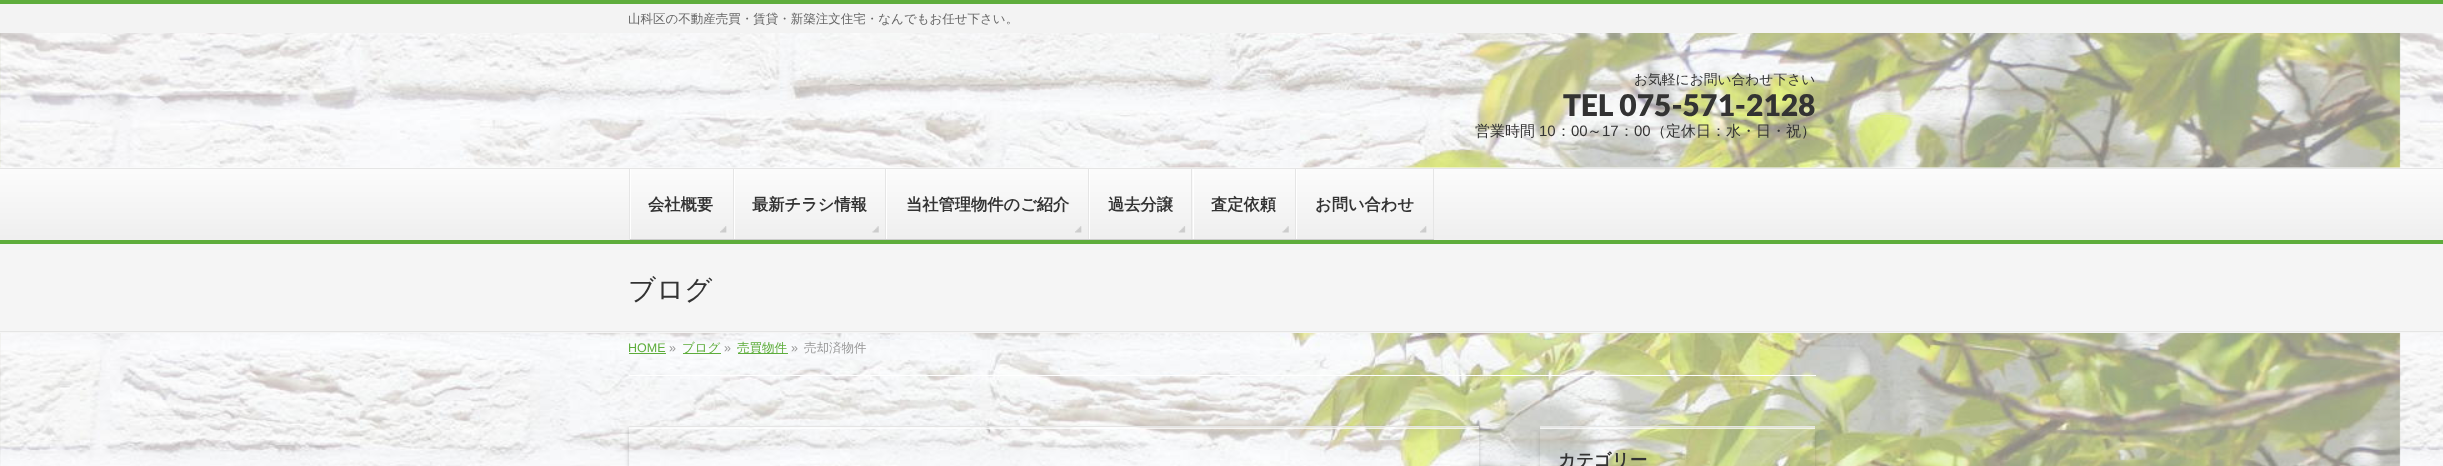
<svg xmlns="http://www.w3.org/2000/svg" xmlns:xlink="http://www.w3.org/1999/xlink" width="2443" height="466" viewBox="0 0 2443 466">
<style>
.cls-1{font:500 12.5px WenQuanYi Zen Hei;fill:#666666}
.cls-2{font:500 13.75px WenQuanYi Zen Hei;fill:#333333}
.cls-3{font:900 30px Lato;fill:#333333}
.cls-4{font:500 15px WenQuanYi Zen Hei;fill:#333333}
.cls-5{font:15px Liberation Sans;fill:#333333}
.cls-6{font:bold 16.25px WenQuanYi Zen Hei;fill:#333333}
.cls-7{font:500 27.5px WenQuanYi Zen Hei;fill:#333333}
.cls-8{font:12.5px Liberation Sans;fill:#5ead3c}
.cls-9{font:12.5px Liberation Sans;fill:#999999}
.cls-10{font:500 12.5px WenQuanYi Zen Hei;fill:#5ead3c}
.cls-11{font:500 12.5px WenQuanYi Zen Hei;fill:#999999}
.cls-12{font:bold 17.5px WenQuanYi Zen Hei;fill:#333333}
</style>
<defs>
<clipPath id="clip1"><path d="M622 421H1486V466H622ZM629 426H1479V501H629Z" clip-rule="evenodd"/></clipPath>
<clipPath id="clip2"><path d="M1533 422H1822V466H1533ZM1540 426H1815V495H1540Z" clip-rule="evenodd"/></clipPath>
</defs>
<rect width="100%" height="100%" fill="#ffffff"/>
<image xlink:href="image0.png" x="0" y="33" width="2443" height="433"/>
<rect fill="#f3f3f3" x="0" y="4" width="2443" height="29"/>
<rect fill="#5ead3c" x="0" y="0" width="2443" height="4"/>
<image xlink:href="image1.png" x="0" y="167" width="2443" height="73"/>
<rect fill="#e5e5e5" x="0" y="168" width="2443" height="1"/>
<rect fill="#5ead3c" x="0" y="240" width="2443" height="4"/>
<rect fill="#e5e5e5" x="629" y="169" width="1" height="71"/>
<rect fill="#ffffff" x="630" y="169" width="1" height="71"/>
<image xlink:href="image2.png" x="720" y="226" width="7" height="7"/>
<rect fill="#e5e5e5" x="733" y="169" width="1" height="71"/>
<rect fill="#cccccc" x="630" y="239" width="104" height="1"/>
<rect fill="#ffffff" x="734" y="169" width="1" height="71"/>
<image xlink:href="image3.png" x="872" y="226" width="7" height="7"/>
<rect fill="#e5e5e5" x="885" y="169" width="1" height="71"/>
<rect fill="#cccccc" x="734" y="239" width="152" height="1"/>
<rect fill="#ffffff" x="886" y="169" width="1" height="71"/>
<image xlink:href="image4.png" x="1075" y="226" width="7" height="7"/>
<rect fill="#e5e5e5" x="1088" y="169" width="1" height="71"/>
<rect fill="#cccccc" x="886" y="239" width="203" height="1"/>
<rect fill="#ffffff" x="1089" y="169" width="1" height="71"/>
<image xlink:href="image5.png" x="1178" y="226" width="8" height="7"/>
<rect fill="#e5e5e5" x="1191" y="169" width="1" height="71"/>
<rect fill="#cccccc" x="1089" y="239" width="104" height="1"/>
<rect fill="#ffffff" x="1193" y="169" width="1" height="71"/>
<image xlink:href="image3.png" x="1282" y="226" width="7" height="7"/>
<rect fill="#e5e5e5" x="1295" y="169" width="1" height="71"/>
<rect fill="#cccccc" x="1193" y="239" width="103" height="1"/>
<rect fill="#ffffff" x="1296" y="169" width="1" height="71"/>
<image xlink:href="image4.png" x="1420" y="226" width="7" height="7"/>
<rect fill="#e5e5e5" x="1433" y="169" width="1" height="71"/>
<rect fill="#cccccc" x="1296" y="239" width="138" height="1"/>
<rect fill="#f5f5f5" x="0" y="244" width="2443" height="89"/>
<rect fill="#e5e5e5" x="0" y="331" width="2443" height="1"/>
<rect fill="#ffffff" x="629" y="375" width="1187" height="1"/>
<rect fill="#5ead3c" x="629" y="353" width="37" height="1"/>
<rect fill="#5ead3c" x="683" y="353" width="38" height="1"/>
<rect fill="#5ead3c" x="738" y="353" width="50" height="1"/>
<g clip-path="url(#clip1)">
<rect fill="#000000" fill-opacity="0.2" filter="blur(2px)" x="629" y="428" width="850" height="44"/>
</g>
<image xlink:href="image6.png" x="628" y="427" width="851" height="2"/>
<rect fill="#e5e5e5" x="629" y="426" width="850" height="1"/>
<g clip-path="url(#clip2)">
<rect fill="#000000" fill-opacity="0.15" filter="blur(2px)" x="1540" y="429" width="275" height="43"/>
</g>
<image xlink:href="image7.png" x="1540" y="427" width="275" height="2"/>
<rect fill="#e5e5e5" x="1540" y="426" width="275" height="1"/>
<text class="cls-1" x="628" y="23">山科区の不動産売買・賃貸・新築注文住宅・なんでもお任せ下さい。</text>
<text class="cls-2" x="1634" y="84">お気軽にお問い合わせ下さい</text>
<text class="cls-3" x="1563" y="116">TEL 075-571-2128</text>
<text class="cls-4" x="1475" y="136">営業時間</text>
<text class="cls-5" x="1539" y="136">10</text>
<text class="cls-4" x="1556" y="136">：</text>
<text class="cls-5" x="1571" y="136">00</text>
<text class="cls-4" x="1587" y="136">～</text>
<text class="cls-5" x="1602" y="136">17</text>
<text class="cls-4" x="1619" y="136">：</text>
<text class="cls-5" x="1634" y="136">00</text>
<text class="cls-4" x="1651" y="136">（定休日：水・日・祝）</text>
<text class="cls-6" x="648" y="210">会社概要</text>
<text class="cls-6" x="752" y="210">最新チラシ情報</text>
<text class="cls-6" x="906" y="210">当社管理物件のご紹介</text>
<text class="cls-6" x="1108" y="210">過去分譲</text>
<text class="cls-6" x="1211" y="210">査定依頼</text>
<text class="cls-6" x="1315" y="210">お問い合わせ</text>
<text class="cls-7" x="628" y="299">ブログ</text>
<text class="cls-8" x="628" y="352">HOME</text>
<text class="cls-9" x="669" y="352">»</text>
<text class="cls-10" x="682" y="352">ブログ</text>
<text class="cls-9" x="724" y="352">»</text>
<text class="cls-10" x="737" y="352">売買物件</text>
<text class="cls-9" x="791" y="352">»</text>
<text class="cls-11" x="804" y="352">売却済物件</text>
<text class="cls-12" x="1558" y="466">カテゴリー</text>
</svg>
